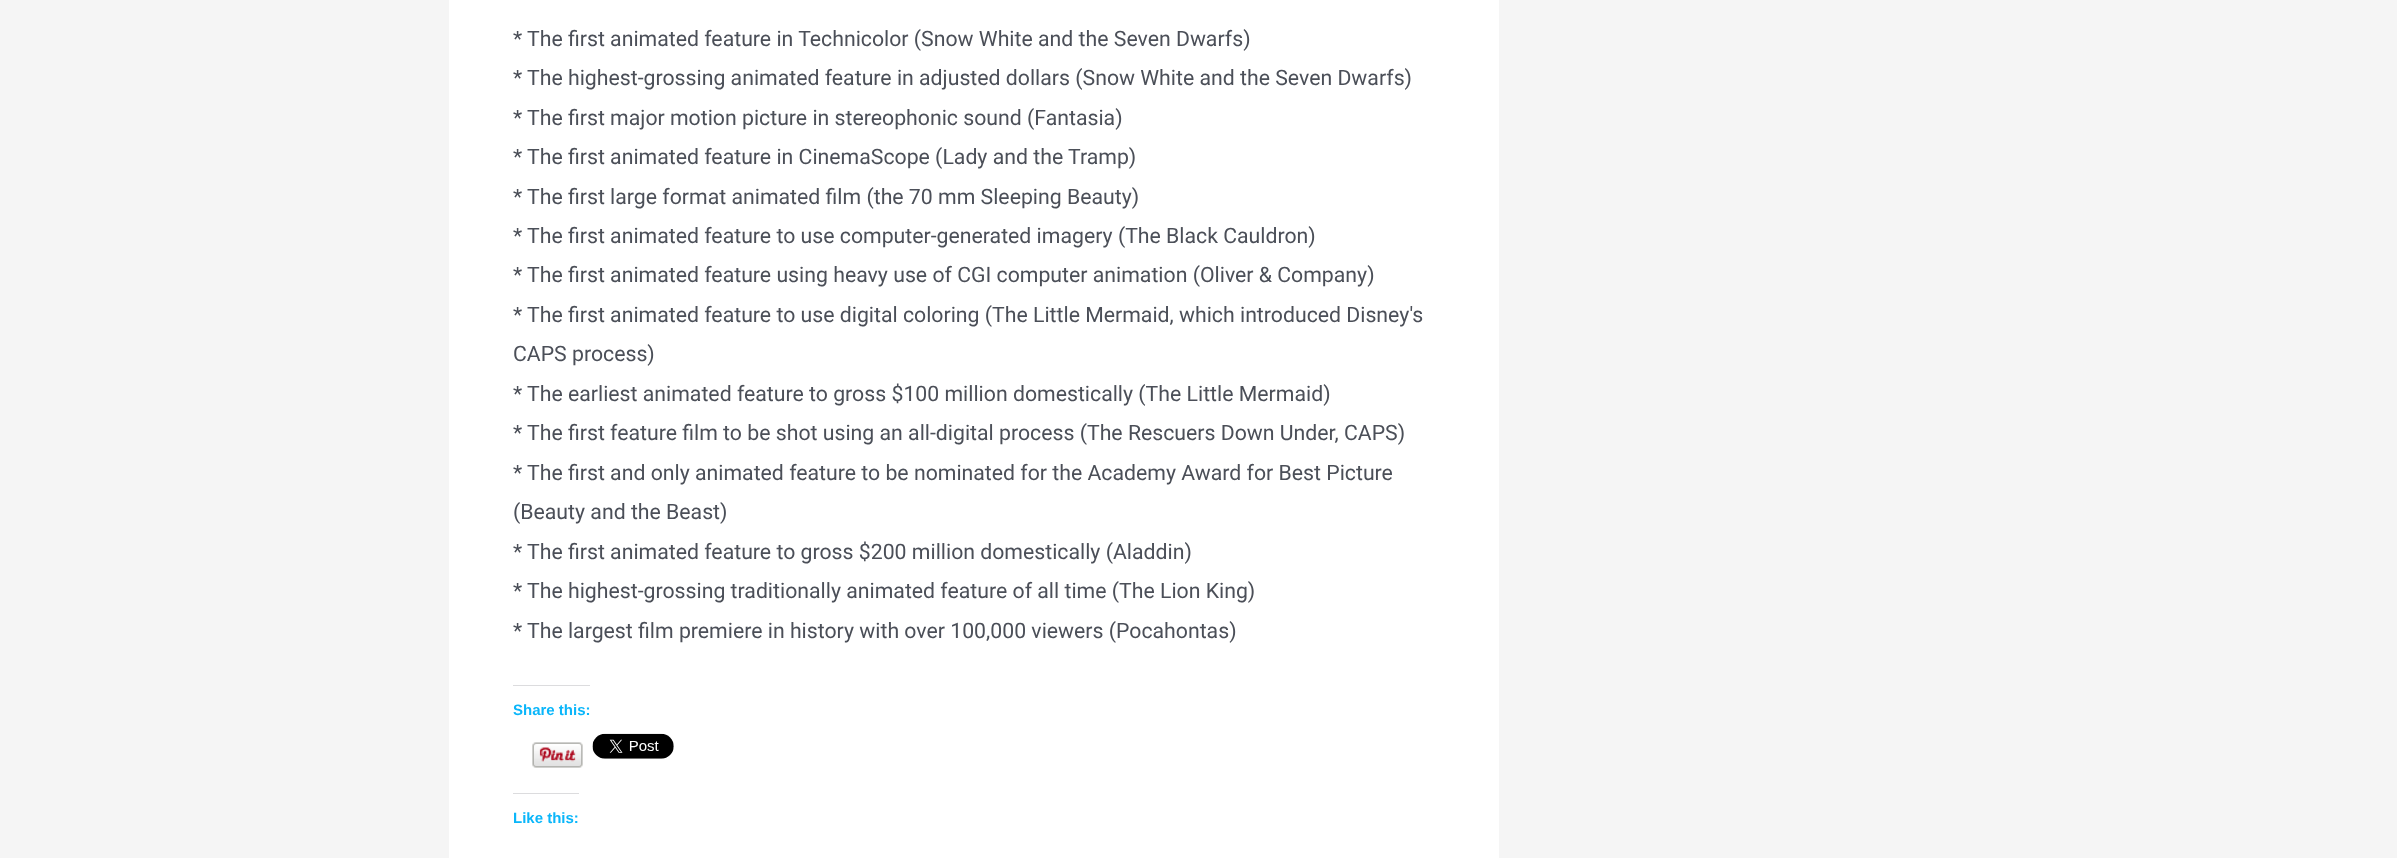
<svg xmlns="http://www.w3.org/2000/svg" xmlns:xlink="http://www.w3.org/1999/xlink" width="2397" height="858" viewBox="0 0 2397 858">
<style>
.cls-1{font:21.25px Roboto;fill:#4b4f58}
.cls-2{font:bold 15px Liberation Sans;fill:#0ab6fa}
</style>
<rect width="100%" height="100%" fill="#f5f5f5"/>
<rect fill="#ffffff" x="449" y="0" width="1050" height="858"/>
<rect fill="#dcdcde" x="513" y="685" width="77" height="1"/>
<image xlink:href="image0.png" x="532" y="742" width="51" height="26"/>
<image xlink:href="image1.png" x="592" y="733" width="82" height="26"/>
<rect fill="#dcdcde" x="513" y="793" width="66" height="1"/>
<text class="cls-1"><tspan x="513" y="46">* The first animated feature in Technicolor (Snow White and the Seven Dwarfs)</tspan><tspan x="513" y="85">* The highest-grossing animated feature in adjusted dollars (Snow White and the Seven Dwarfs)</tspan><tspan x="513" y="125">* The first major motion picture in stereophonic sound (Fantasia)</tspan><tspan x="513" y="164">* The first animated feature in CinemaScope (Lady and the Tramp)</tspan><tspan x="513" y="204">* The first large format animated film (the 70 mm Sleeping Beauty)</tspan><tspan x="513" y="243">* The first animated feature to use computer-generated imagery (The Black Cauldron)</tspan><tspan x="513" y="282">* The first animated feature using heavy use of CGI computer animation (Oliver &amp; Company)</tspan><tspan x="513" y="322">* The first animated feature to use digital coloring (The Little Mermaid, which introduced Disney's</tspan><tspan x="513" y="361">CAPS process)</tspan><tspan x="513" y="401">* The earliest animated feature to gross $100 million domestically (The Little Mermaid)</tspan><tspan x="513" y="440">* The first feature film to be shot using an all-digital process (The Rescuers Down Under, CAPS)</tspan><tspan x="513" y="480">* The first and only animated feature to be nominated for the Academy Award for Best Picture</tspan><tspan x="513" y="519">(Beauty and the Beast)</tspan><tspan x="513" y="559">* The first animated feature to gross $200 million domestically (Aladdin)</tspan><tspan x="513" y="598">* The highest-grossing traditionally animated feature of all time (The Lion King)</tspan><tspan x="513" y="638">* The largest film premiere in history with over 100,000 viewers (Pocahontas)</tspan></text>
<text class="cls-2" x="513" y="715">Share this:</text>
<text class="cls-2" x="513" y="823">Like this:</text>
</svg>
